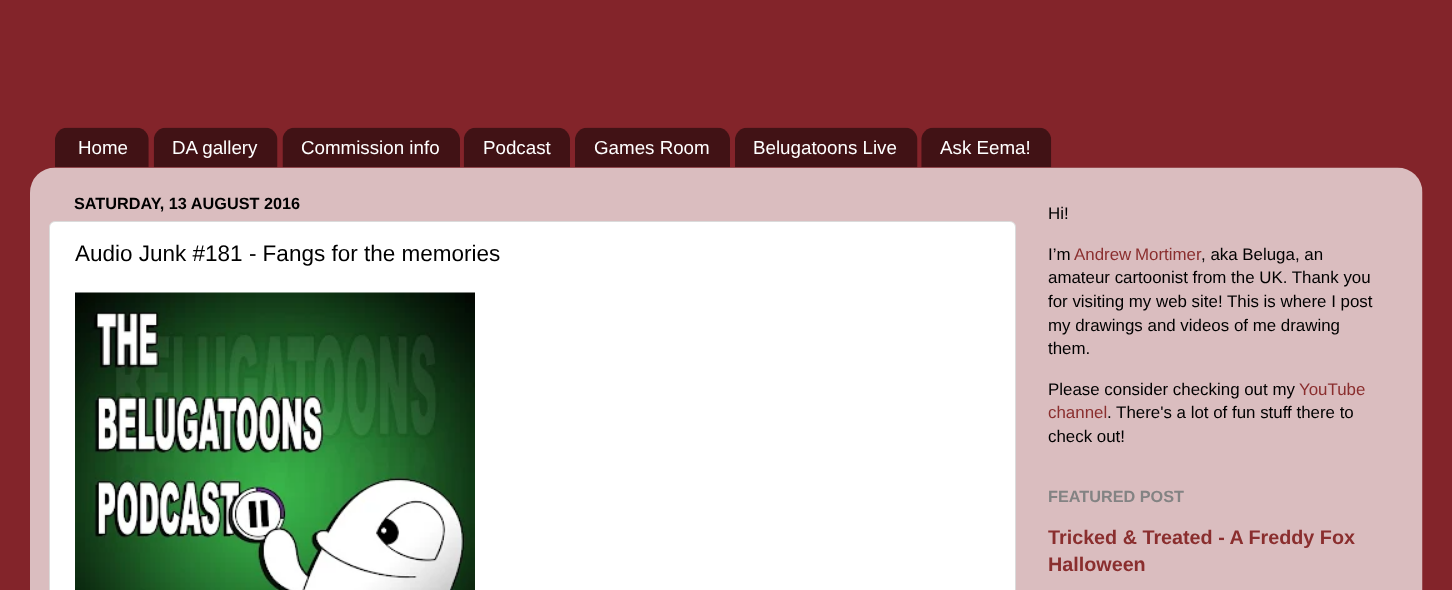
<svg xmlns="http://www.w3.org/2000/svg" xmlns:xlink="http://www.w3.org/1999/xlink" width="1452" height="590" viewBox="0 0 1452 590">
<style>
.cls-1{font:18.75px Liberation Sans;fill:#ffffff}
.cls-2{font:bold 16.25px Liberation Sans;fill:#000000}
.cls-3{font:22.5px Liberation Sans;fill:#000000}
.cls-4{font:16.9px Liberation Sans;fill:#000000}
.cls-5{font:16.9px Liberation Sans;fill:#8a2e2e}
.cls-6{font:bold 16.25px Liberation Sans;fill:#838383}
.cls-7{font:bold 19.75px Liberation Sans;fill:#8a2e2e}
</style>
<rect width="100%" height="100%" fill="#83242a"/>
<image xlink:href="image0.png" x="55" y="127" width="94" height="41"/>
<image xlink:href="image1.png" x="153" y="127" width="125" height="41"/>
<image xlink:href="image2.png" x="282" y="127" width="178" height="41"/>
<image xlink:href="image3.png" x="463" y="127" width="107" height="41"/>
<image xlink:href="image4.png" x="575" y="127" width="155" height="41"/>
<image xlink:href="image5.png" x="735" y="127" width="183" height="41"/>
<image xlink:href="image6.png" x="921" y="127" width="131" height="41"/>
<image xlink:href="image7.png" x="30" y="167" width="1393" height="423"/>
<rect fill="#ffffff" stroke="#dbdbdb" x="49.5" y="221.5" width="966" height="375" rx="5.5"/>
<image xlink:href="image8.png" x="75" y="292" width="400" height="298"/>
<text class="cls-1" x="78" y="154">Home</text>
<text class="cls-1" x="172" y="154">DA gallery</text>
<text class="cls-1" x="301" y="154">Commission info</text>
<text class="cls-1" x="483" y="154">Podcast</text>
<text class="cls-1" x="594" y="154">Games Room</text>
<text class="cls-1" x="753" y="154">Belugatoons Live</text>
<text class="cls-1" x="940" y="154">Ask Eema!</text>
<text class="cls-2" x="74" y="209">SATURDAY, 13 AUGUST 2016</text>
<text class="cls-3" x="75" y="261">Audio Junk #181 - Fangs for the memories</text>
<text class="cls-4" x="1048" y="219">Hi!</text>
<text class="cls-4" x="1048" y="260">I’m</text>
<text class="cls-5" x="1074" y="260" word-spacing="-1">Andrew Mortimer</text>
<text class="cls-4" x="1201" y="260">, aka Beluga, an</text>
<text class="cls-4"><tspan x="1048" y="283">amateur cartoonist from the UK. Thank you</tspan><tspan x="1048" y="307">for visiting my web site! This is where I post</tspan><tspan x="1048" y="331">my drawings and videos of me drawing</tspan><tspan x="1048" y="354">them.</tspan></text>
<text class="cls-4" x="1048" y="395">Please consider checking out my</text>
<text class="cls-5" x="1299" y="395">YouTube</text>
<text class="cls-5" x="1048" y="418">channel</text>
<text class="cls-4" x="1107" y="418">. There's a lot of fun stuff there to</text>
<text class="cls-4" x="1048" y="442">check out!</text>
<text class="cls-6" x="1048" y="502">FEATURED POST</text>
<text class="cls-7"><tspan x="1048" y="544">Tricked &amp; Treated - A Freddy Fox</tspan><tspan x="1048" y="571">Halloween</tspan></text>
</svg>
